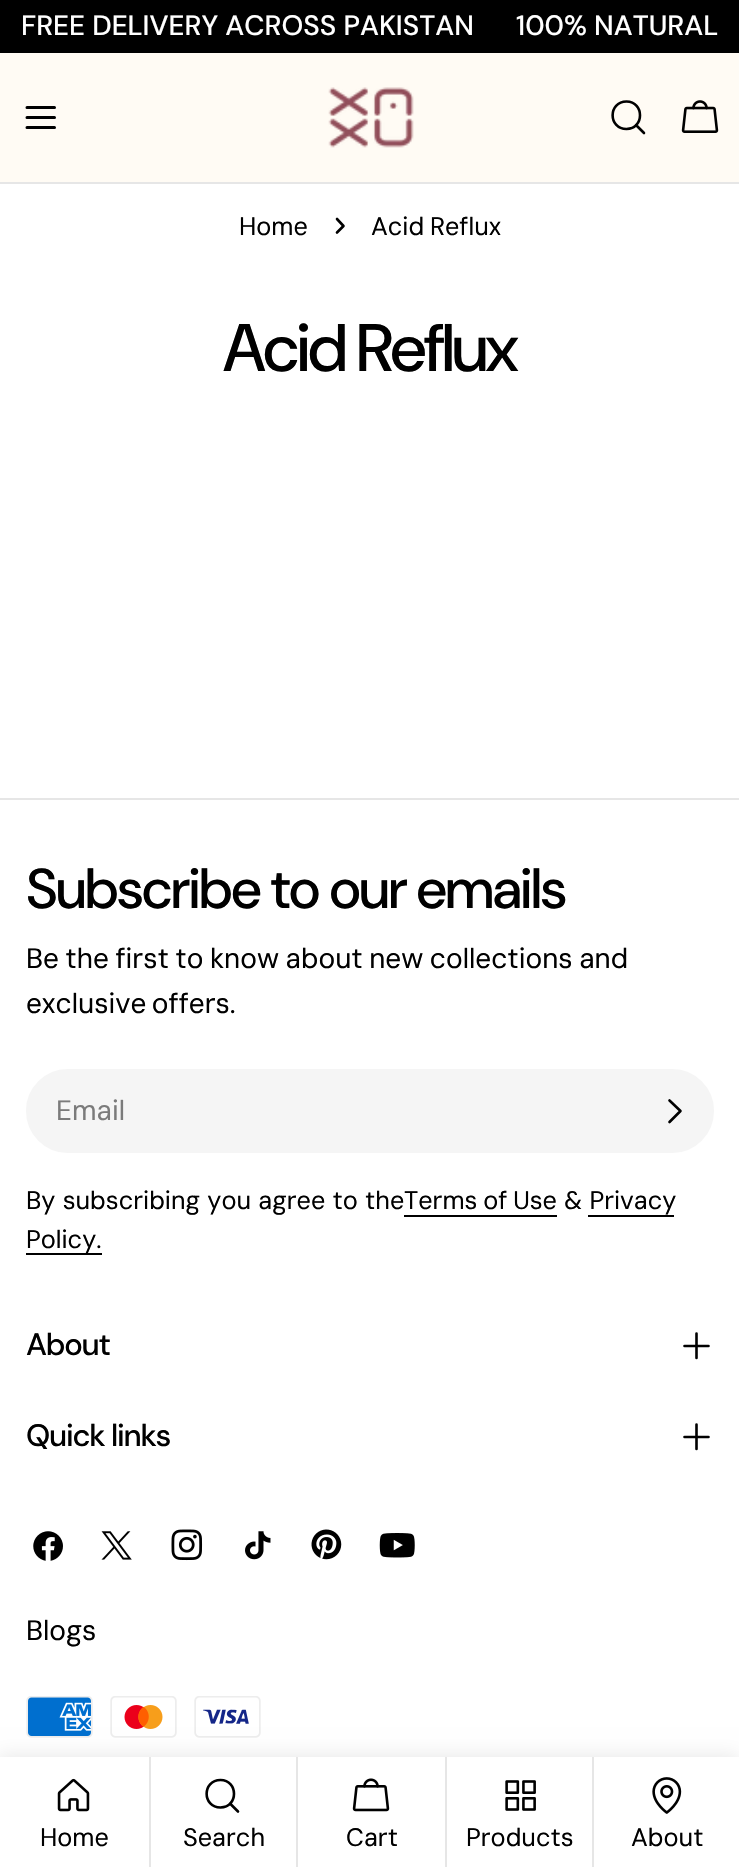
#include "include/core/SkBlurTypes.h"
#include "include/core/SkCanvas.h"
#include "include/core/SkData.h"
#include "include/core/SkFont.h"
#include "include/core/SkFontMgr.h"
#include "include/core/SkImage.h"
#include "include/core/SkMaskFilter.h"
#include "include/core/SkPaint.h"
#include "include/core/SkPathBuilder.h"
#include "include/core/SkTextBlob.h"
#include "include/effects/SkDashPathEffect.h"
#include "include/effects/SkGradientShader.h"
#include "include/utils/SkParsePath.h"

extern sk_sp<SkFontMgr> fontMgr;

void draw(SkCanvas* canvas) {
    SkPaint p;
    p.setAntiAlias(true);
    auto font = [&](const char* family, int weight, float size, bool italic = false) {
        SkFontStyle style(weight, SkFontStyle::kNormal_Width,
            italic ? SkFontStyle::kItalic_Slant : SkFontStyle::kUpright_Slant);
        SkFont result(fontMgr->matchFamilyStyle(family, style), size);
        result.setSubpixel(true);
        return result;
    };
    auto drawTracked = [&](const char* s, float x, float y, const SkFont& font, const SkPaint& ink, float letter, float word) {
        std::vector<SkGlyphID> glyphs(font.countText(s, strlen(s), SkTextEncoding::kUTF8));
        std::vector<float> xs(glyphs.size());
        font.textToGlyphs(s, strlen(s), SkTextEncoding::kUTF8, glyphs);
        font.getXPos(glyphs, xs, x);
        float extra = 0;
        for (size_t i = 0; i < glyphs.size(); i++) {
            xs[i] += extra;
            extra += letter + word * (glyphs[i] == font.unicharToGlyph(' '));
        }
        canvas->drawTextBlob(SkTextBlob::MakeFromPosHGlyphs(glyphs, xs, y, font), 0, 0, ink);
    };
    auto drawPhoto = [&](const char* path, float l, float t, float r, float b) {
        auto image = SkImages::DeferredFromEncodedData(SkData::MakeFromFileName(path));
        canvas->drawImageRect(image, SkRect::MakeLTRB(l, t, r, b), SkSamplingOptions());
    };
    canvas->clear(0xFFFFFFFF);
    p.setColor(0xFF000000);
    canvas->drawRect(SkRect::MakeLTRB(0, 0, 739, 53), p);
    auto font1 = font("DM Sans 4", 500, 28);
    p.setColor(0xFFFFFFFF);
    canvas->drawString("FREE DELIVERY ACROSS PAKISTAN", 21, 35, font1, p);
    canvas->drawString("100% NATURAL", 516, 35, font1, p);
    p.setColor(0xFFE6E6E6);
    canvas->drawRect(SkRect::MakeLTRB(0, 182, 739, 184), p);
    p.setColor(0xFFFFFBF4);
    canvas->drawRect(SkRect::MakeLTRB(0, 53, 739, 182), p);
    p.setStyle(SkPaint::kStroke_Style);
    p.setStrokeWidth(3);
    p.setStrokeCap(SkPaint::kRound_Cap);
    p.setStrokeJoin(SkPaint::kRound_Join);
    p.setColor(0xFF000000);
    canvas->drawPath(SkPathBuilder().moveTo(27, 117.5f).lineTo(54.5f, 117.5f).moveTo(27, 107.5f).lineTo(54.5f, 107.5f).moveTo(27, 127.5f).lineTo(54.5f, 127.5f).detach(), p);
    drawPhoto("media/1.png", 328, 87, 414, 148);
    p.setStrokeWidth(2.6f);
    canvas->drawPath(SkPathBuilder().moveTo(626.5f, 129).cubicTo(644.5f, 129, 644.5f, 101.5f, 626.5f, 101.5f).cubicTo(608, 101.5f, 608, 129, 626.5f, 129).close().moveTo(636, 125).lineTo(644, 133).detach(), p);
    drawPhoto("media/2.png", 681, 100, 719, 133);
    auto font2 = font("DM Sans", 400, 25.25f);
    p.setStyle(SkPaint::kFill_Style);
    canvas->drawString("Home", 239, 235, font2, p);
    p.setStyle(SkPaint::kStroke_Style);
    canvas->drawPath(SkPathBuilder().moveTo(337, 219).lineTo(343.5f, 226).lineTo(337, 232.5f).detach(), p);
    p.setStyle(SkPaint::kFill_Style);
    drawTracked("Acid Reflux", 371, 235, font2, p, 0, -1);
    auto font3 = font("DM Sans", 500, 67);
    drawTracked("Acid Reflux", 223, 371, font3, p, -2.75f, 0);
    p.setColor(0xFFE6E6E6);
    canvas->drawRect(SkRect::MakeLTRB(0, 798, 739, 800), p);
    auto font4 = font("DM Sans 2", 500, 56);
    p.setColor(0xFF000000);
    drawTracked("Subscribe to our emails", 26, 908, font4, p, -2.25f, 0);
    auto font5 = font("DM Sans", 400, 28);
    drawTracked("Be the first to know about new collections and", 26, 968, font5, p, 0, -1);
    drawTracked("exclusive offers.", 26, 1013, font5, p, 0, -2);
    p.setColor(0xFFF5F5F5);
    canvas->drawRoundRect(SkRect::MakeLTRB(27, 1070, 713, 1152), 41, 41, p);
    p.setStyle(SkPaint::kStroke_Style);
    p.setStrokeWidth(2);
    p.setStrokeCap(SkPaint::kButt_Cap);
    p.setStrokeJoin(SkPaint::kMiter_Join);
    canvas->drawRoundRect(SkRect::MakeLTRB(27, 1070, 713, 1152), 41, 41, p);
    p.setStyle(SkPaint::kFill_Style);
    p.setColor(0xFF7B7B7B);
    canvas->drawString("Email", 56, 1120, font5, p);
    p.setStyle(SkPaint::kStroke_Style);
    p.setStrokeWidth(2.6f);
    p.setStrokeCap(SkPaint::kRound_Cap);
    p.setStrokeJoin(SkPaint::kRound_Join);
    p.setColor(0xFF000000);
    canvas->drawPath(SkPathBuilder().moveTo(669.5f, 1100.5f).lineTo(680.5f, 1111).lineTo(669.5f, 1122).detach(), p);
    p.setStyle(SkPaint::kFill_Style);
    drawTracked("By subscribing you agree to the", 26, 1209, font2, p, 0, 0.5f);
    drawTracked("Terms of Use", 404, 1209, font2, p, 0, -1);
    canvas->drawRect(SkRect::MakeLTRB(404, 1215, 557, 1217), p);
    canvas->drawString("& Privacy", 564, 1209, font2, p);
    canvas->drawRect(SkRect::MakeLTRB(26, 1253, 102, 1255), p);
    canvas->drawString("Policy.", 26, 1248, font2, p);
    canvas->drawRect(SkRect::MakeLTRB(588, 1215, 674, 1217), p);
    auto font6 = font("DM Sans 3", 500, 31);
    drawTracked("About", 26, 1355, font6, p, -1.25f, 0);
    p.setStyle(SkPaint::kStroke_Style);
    canvas->drawPath(SkPathBuilder().moveTo(684.5f, 1346).lineTo(708.5f, 1346).moveTo(696.5f, 1333.5f).lineTo(696.5f, 1358).detach(), p);
    p.setStyle(SkPaint::kFill_Style);
    drawTracked("Quick links", 26, 1446, font6, p, -1.25f, 0);
    p.setStyle(SkPaint::kStroke_Style);
    canvas->drawPath(SkPathBuilder().moveTo(684.5f, 1437).lineTo(708.5f, 1437).moveTo(696.5f, 1424.5f).lineTo(696.5f, 1449).detach(), p);
    drawPhoto("media/3.png", 33, 1531, 63, 1561);
    drawPhoto("media/4.png", 101, 1531, 132, 1560);
    drawPhoto("media/5.png", 171, 1529, 203, 1561);
    drawPhoto("media/6.png", 245, 1531, 271, 1560);
    drawPhoto("media/7.png", 311, 1529, 342, 1560);
    drawPhoto("media/8.png", 379, 1533, 415, 1558);
    p.setStyle(SkPaint::kFill_Style);
    canvas->drawString("Blogs", 26, 1640, font5, p);
    drawPhoto("media/9.png", 26, 1696, 93, 1738);
    drawPhoto("media/10.png", 110, 1696, 177, 1738);
    drawPhoto("media/11.png", 194, 1696, 261, 1738);
    p.setColor(0x14000000);
    p.setMaskFilter(SkMaskFilter::MakeBlur(kNormal_SkBlurStyle, 9));
    canvas->drawRect(SkRect::MakeLTRB(-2, 1754, 739, 1864), p);
    p.setMaskFilter(nullptr);
    p.setColor(0xFFFFFFFF);
    canvas->drawRect(SkRect::MakeLTRB(0, 1757, 739, 1867), p);
    drawPhoto("media/12.png", 57, 1778, 90, 1812);
    p.setColor(0xFF000000);
    canvas->drawString("Home", 40, 1846, font2, p);
    p.setColor(0xFFE6E6E6);
    canvas->drawRect(SkRect::MakeLTRB(149, 1757, 151, 1867), p);
    p.setStyle(SkPaint::kStroke_Style);
    p.setColor(0xFF000000);
    canvas->drawPath(SkPathBuilder().moveTo(220.5f, 1807.5f).cubicTo(238.5f, 1807.5f, 238.5f, 1780, 220.5f, 1780).cubicTo(202, 1780, 202, 1807.5f, 220.5f, 1807.5f).close().moveTo(230, 1803.5f).lineTo(238, 1811.5f).detach(), p);
    p.setStyle(SkPaint::kFill_Style);
    canvas->drawString("Search", 183, 1846, font2, p);
    p.setColor(0xFFE6E6E6);
    canvas->drawRect(SkRect::MakeLTRB(296, 1757, 298, 1867), p);
    drawPhoto("media/13.png", 352, 1778, 390, 1812);
    p.setColor(0xFF000000);
    canvas->drawString("Cart", 346, 1846, font2, p);
    p.setColor(0xFFE6E6E6);
    canvas->drawRect(SkRect::MakeLTRB(445, 1757, 447, 1867), p);
    drawPhoto("media/14.png", 505, 1780, 536, 1811);
    p.setColor(0xFF000000);
    canvas->drawString("Products", 466, 1846, font2, p);
    p.setColor(0xFFE6E6E6);
    canvas->drawRect(SkRect::MakeLTRB(592, 1757, 594, 1867), p);
    drawPhoto("media/15.png", 652, 1777, 682, 1814);
    p.setColor(0xFF000000);
    canvas->drawString("About", 631, 1846, font2, p);
}
